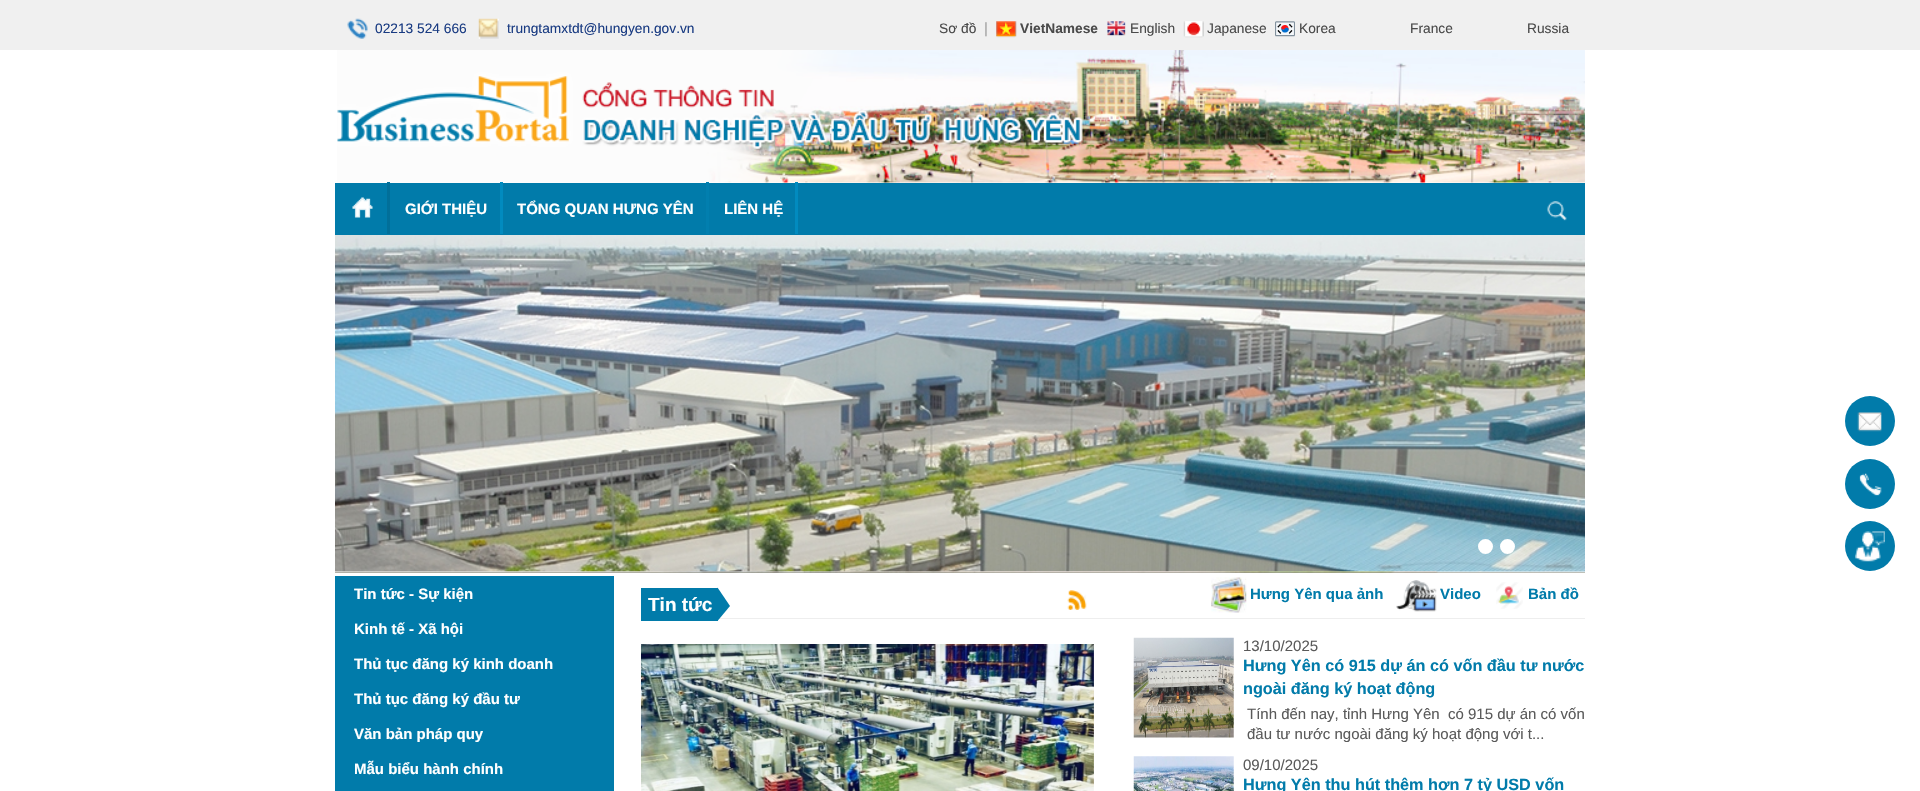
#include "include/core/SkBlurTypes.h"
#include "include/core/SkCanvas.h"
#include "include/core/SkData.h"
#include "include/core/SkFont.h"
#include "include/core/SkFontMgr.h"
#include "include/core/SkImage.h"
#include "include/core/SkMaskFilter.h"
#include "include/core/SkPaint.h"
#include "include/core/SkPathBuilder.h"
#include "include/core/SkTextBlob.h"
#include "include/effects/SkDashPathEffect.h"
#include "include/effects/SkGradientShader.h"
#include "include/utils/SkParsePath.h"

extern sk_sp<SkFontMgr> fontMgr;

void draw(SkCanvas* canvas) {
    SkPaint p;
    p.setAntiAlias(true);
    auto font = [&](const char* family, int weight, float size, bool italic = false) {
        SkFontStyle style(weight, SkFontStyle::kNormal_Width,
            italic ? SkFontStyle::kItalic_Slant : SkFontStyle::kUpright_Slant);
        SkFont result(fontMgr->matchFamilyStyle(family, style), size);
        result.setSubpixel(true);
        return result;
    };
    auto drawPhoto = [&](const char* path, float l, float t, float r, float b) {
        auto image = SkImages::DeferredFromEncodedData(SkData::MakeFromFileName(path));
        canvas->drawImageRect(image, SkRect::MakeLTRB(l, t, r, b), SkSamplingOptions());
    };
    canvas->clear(0xFFFFFFFF);
    p.setColor(0xFFF0F0F0);
    canvas->drawRect(SkRect::MakeLTRB(0, 0, 1920, 50), p);
    drawPhoto("media/1.png", 347, 18, 368, 39);
    auto font1 = font("Liberation Sans", 400, 13.75f);
    p.setColor(0xFF193B82);
    canvas->drawString("02213 524 666", 375, 33, font1, p);
    drawPhoto("media/2.png", 478, 18, 499, 39);
    canvas->drawString("trungtamxtdt@hungyen.gov.vn", 507, 33, font1, p);
    p.setColor(0xFF4A4A4A);
    canvas->drawString("Sơ đồ", 939, 33, font1, p);
    auto font2 = font("Liberation Sans", 400, 15);
    p.setColor(0xFFA1A1A1);
    canvas->drawString("|", 984, 33, font2, p);
    drawPhoto("media/3.png", 996, 21, 1017, 38);
    auto font3 = font("Liberation Sans", 700, 13.75f);
    p.setColor(0xFF4A4A4A);
    canvas->drawString("VietNamese", 1020, 33, font3, p);
    drawPhoto("media/4.png", 1107, 21, 1126, 36);
    canvas->drawString("English", 1130, 33, font1, p);
    drawPhoto("media/5.png", 1183, 21, 1204, 38);
    canvas->drawString("Japanese", 1207, 33, font1, p);
    drawPhoto("media/6.png", 1275, 21, 1295, 37);
    {
        const struct { const char* s; float x, y; } items[] = {
            {"Korea", 1299, 33},
            {"France", 1410, 33},
            {"Russia", 1527, 33},
        };
        for (auto [s, x, y] : items) {
            canvas->drawString(s, x, y, font1, p);
        }
    }
    drawPhoto("media/7.png", 337, 50, 1585, 183);
    p.setColor(0xFF017BAA);
    canvas->drawRect(SkRect::MakeLTRB(335, 183, 1585, 235), p);
    drawPhoto("media/8.png", 352, 197, 373, 218);
    p.setColor(0xFF026F99);
    canvas->drawRect(SkRect::MakeLTRB(387, 182, 390, 234), p);
    auto font4 = font("Liberation Sans", 700, 15);
    p.setColor(0xFFFFFFFF);
    canvas->drawString("GIỚI THIỆU", 405, 214, font4, p);
    p.setColor(0xFF028BBF);
    canvas->drawRect(SkRect::MakeLTRB(500, 182, 503, 234), p);
    p.setColor(0xFFFFFFFF);
    canvas->drawString("TỔNG QUAN HƯNG YÊN", 517, 214, font4, p);
    p.setColor(0xFF027FAF);
    canvas->drawRect(SkRect::MakeLTRB(706, 182, 709, 234), p);
    p.setColor(0xFFFFFFFF);
    canvas->drawString("LIÊN HỆ", 724, 214, font4, p);
    p.setColor(0xFF028BBF);
    canvas->drawRect(SkRect::MakeLTRB(795, 182, 798, 234), p);
    drawPhoto("media/9.png", 1547, 201, 1567, 221);
    p.setColor(0xFF017BAA);
    canvas->drawCircle(1870, 421, 25, p);
    drawPhoto("media/10.png", 1857, 412, 1882, 432);
    canvas->drawCircle(1870, 484, 25, p);
    drawPhoto("media/11.png", 1859, 473, 1882, 496);
    canvas->drawCircle(1870, 546, 25, p);
    drawPhoto("media/12.png", 1855, 531, 1885, 562);
    p.setColor(0xFF7D7F72);
    canvas->drawRect(SkRect::MakeLTRB(335, 572, 1585, 573), p);
    drawPhoto("media/13.png", 335, 571, 1585, 573);
    drawPhoto("media/14.png", 335, 235, 1585, 572);
    p.setColor(0xFFFFFFFF);
    canvas->drawCircle(1485.5f, 546.5f, 5.5f, p);
    p.setStyle(SkPaint::kStroke_Style);
    p.setStrokeWidth(4);
    canvas->drawCircle(1485.5f, 546.5f, 5.5f, p);
    p.setStyle(SkPaint::kFill_Style);
    canvas->drawCircle(1507.5f, 546.5f, 5.5f, p);
    p.setStyle(SkPaint::kStroke_Style);
    canvas->drawCircle(1507.5f, 546.5f, 5.5f, p);
    p.setStyle(SkPaint::kFill_Style);
    p.setColor(0xFF017BAA);
    canvas->drawRect(SkRect::MakeLTRB(335, 576, 614, 791), p);
    p.setColor(0xFFFFFFFF);
    {
        const struct { const char* s; float x, y; } items[] = {
            {"Tin tức - Sự kiện", 354, 599},
            {"Kinh tế - Xã hội", 354, 634},
            {"Thủ tục đăng ký kinh doanh", 354, 669},
            {"Thủ tục đăng ký đầu tư", 354, 704},
            {"Văn bản pháp quy", 354, 739},
            {"Mẫu biểu hành chính", 354, 774},
        };
        for (auto [s, x, y] : items) {
            canvas->drawString(s, x, y, font4, p);
        }
    }
    p.setColor(0xFFEEEEEE);
    canvas->drawRect(SkRect::MakeLTRB(719, 618, 1585, 619), p);
    drawPhoto("media/15.png", 1211, 577, 1247, 613);
    p.setColor(0xFF017BAA);
    canvas->drawString("Hưng Yên qua ảnh", 1250, 599, font4, p);
    drawPhoto("media/16.png", 1396, 580, 1437, 612);
    canvas->drawString("Video", 1440, 599, font4, p);
    drawPhoto("media/17.png", 1496, 582, 1523, 609);
    canvas->drawString("Bản đồ", 1528, 599, font4, p);
    canvas->drawRect(SkRect::MakeLTRB(641, 588, 718, 621), p);
    auto font5 = font("Liberation Sans", 700, 19);
    p.setColor(0xFFFFFFFF);
    canvas->drawString("Tin tức", 648, 611, font5, p);
    p.setColor(0xFF017BAA);
    canvas->drawPath(SkPathBuilder().moveTo(717.5f, 621).lineTo(717.5f, 587.5f).lineTo(730, 606).close().detach(), p);
    drawPhoto("media/18.png", 1067, 590, 1087, 610);
    drawPhoto("media/19.png", 641, 644, 1094, 791);
    drawPhoto("media/20.png", 1133, 637, 1234, 738);
    p.setColor(0xFF5A5A5A);
    canvas->drawString("13/10/2025", 1243, 651, font2, p);
    auto font6 = font("Liberation Sans", 700, 16.25f);
    p.setColor(0xFF017BAA);
    canvas->drawString("Hưng Yên có 915 dự án có vốn đầu tư nước", 1243, 671, font6, p);
    canvas->drawString("ngoài đăng ký hoạt động", 1243, 694, font6, p);
    p.setColor(0xFF5A5A5A);
    canvas->drawString("Tính đến nay, tỉnh Hưng Yên  có 915 dự án có vốn", 1247, 719, font2, p);
    canvas->drawString("đầu tư nước ngoài đăng ký hoạt động với t...", 1247, 739, font2, p);
    drawPhoto("media/21.png", 1133, 756, 1234, 791);
    canvas->drawString("09/10/2025", 1243, 770, font2, p);
    p.setColor(0xFF017BAA);
    canvas->drawString("Hưng Yên thu hút thêm hơn 7 tỷ USD vốn", 1243, 790, font6, p);
}
